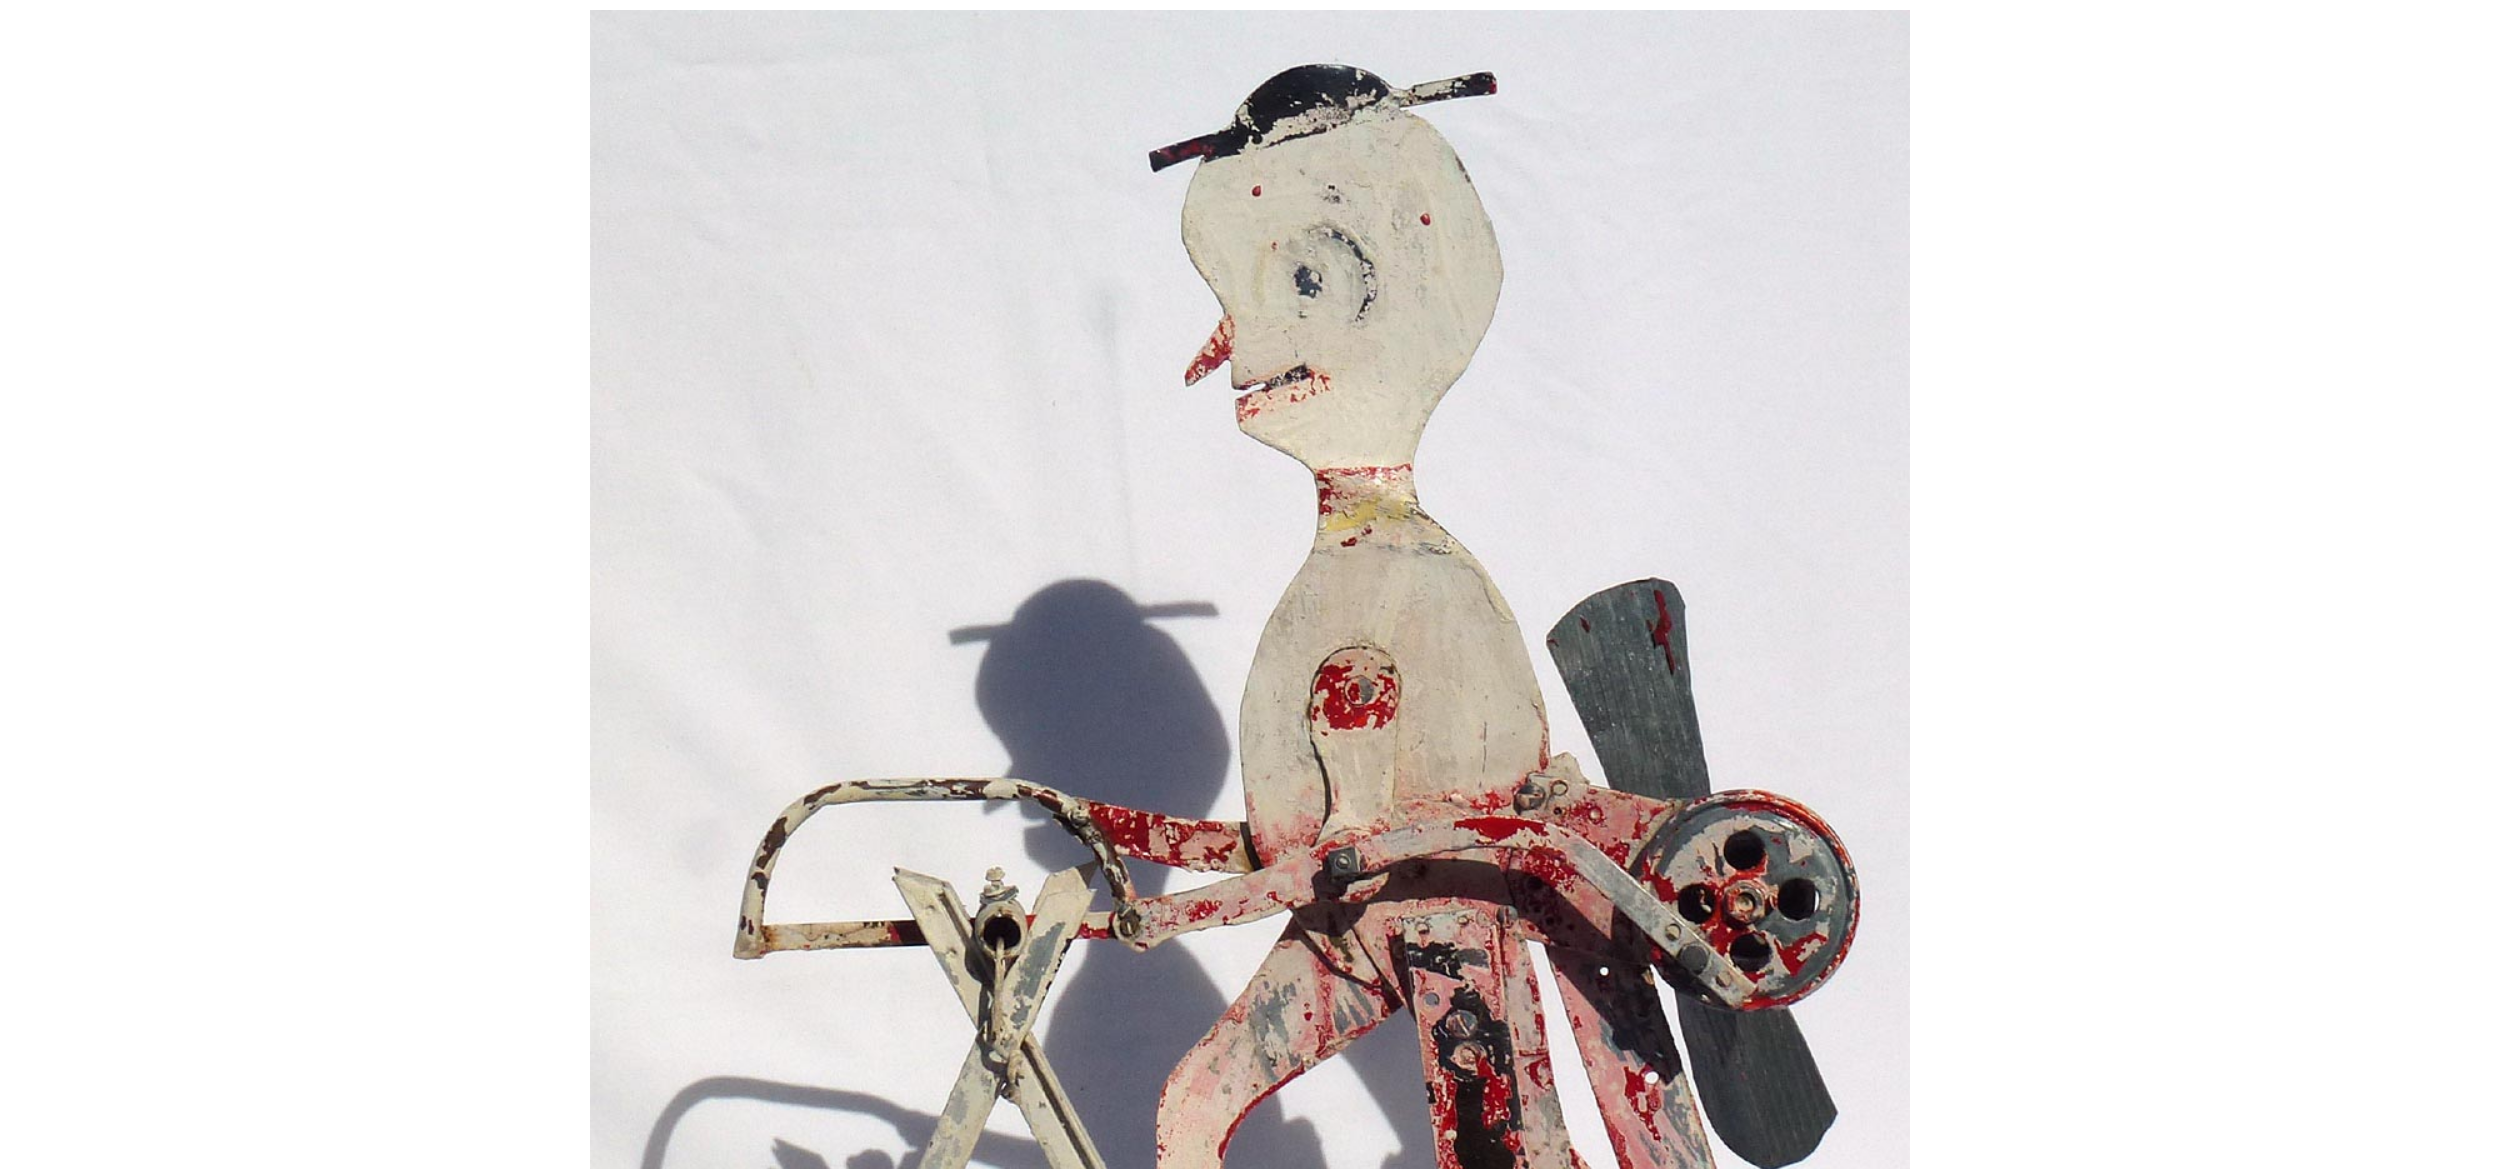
#include "include/core/SkBlurTypes.h"
#include "include/core/SkCanvas.h"
#include "include/core/SkData.h"
#include "include/core/SkFont.h"
#include "include/core/SkFontMgr.h"
#include "include/core/SkImage.h"
#include "include/core/SkMaskFilter.h"
#include "include/core/SkPaint.h"
#include "include/core/SkPathBuilder.h"
#include "include/core/SkTextBlob.h"
#include "include/effects/SkDashPathEffect.h"
#include "include/effects/SkGradientShader.h"
#include "include/utils/SkParsePath.h"

extern sk_sp<SkFontMgr> fontMgr;

void draw(SkCanvas* canvas) {
    SkPaint p;
    p.setAntiAlias(true);
    auto drawPhoto = [&](const char* path, float l, float t, float r, float b) {
        auto image = SkImages::DeferredFromEncodedData(SkData::MakeFromFileName(path));
        canvas->drawImageRect(image, SkRect::MakeLTRB(l, t, r, b), SkSamplingOptions());
    };
    canvas->clear(0xFFFFFFFF);
    drawPhoto("media/1.png", 590, 10, 1910, 1169);
}
